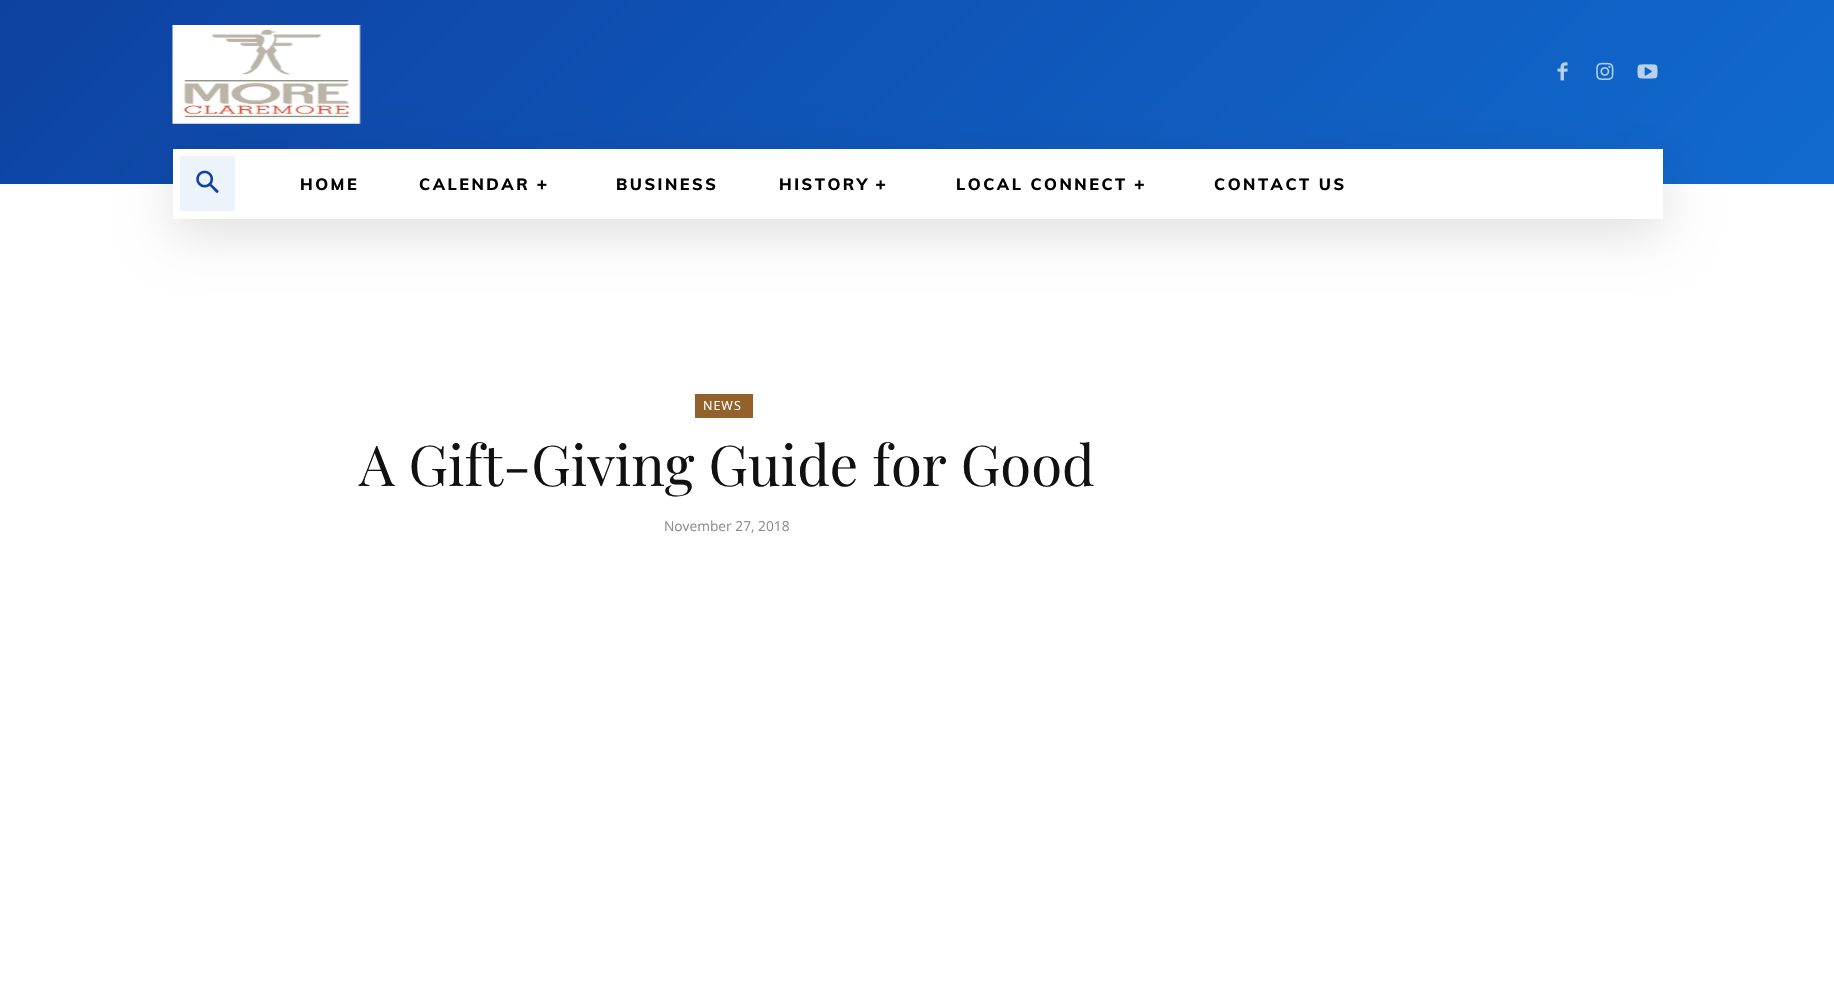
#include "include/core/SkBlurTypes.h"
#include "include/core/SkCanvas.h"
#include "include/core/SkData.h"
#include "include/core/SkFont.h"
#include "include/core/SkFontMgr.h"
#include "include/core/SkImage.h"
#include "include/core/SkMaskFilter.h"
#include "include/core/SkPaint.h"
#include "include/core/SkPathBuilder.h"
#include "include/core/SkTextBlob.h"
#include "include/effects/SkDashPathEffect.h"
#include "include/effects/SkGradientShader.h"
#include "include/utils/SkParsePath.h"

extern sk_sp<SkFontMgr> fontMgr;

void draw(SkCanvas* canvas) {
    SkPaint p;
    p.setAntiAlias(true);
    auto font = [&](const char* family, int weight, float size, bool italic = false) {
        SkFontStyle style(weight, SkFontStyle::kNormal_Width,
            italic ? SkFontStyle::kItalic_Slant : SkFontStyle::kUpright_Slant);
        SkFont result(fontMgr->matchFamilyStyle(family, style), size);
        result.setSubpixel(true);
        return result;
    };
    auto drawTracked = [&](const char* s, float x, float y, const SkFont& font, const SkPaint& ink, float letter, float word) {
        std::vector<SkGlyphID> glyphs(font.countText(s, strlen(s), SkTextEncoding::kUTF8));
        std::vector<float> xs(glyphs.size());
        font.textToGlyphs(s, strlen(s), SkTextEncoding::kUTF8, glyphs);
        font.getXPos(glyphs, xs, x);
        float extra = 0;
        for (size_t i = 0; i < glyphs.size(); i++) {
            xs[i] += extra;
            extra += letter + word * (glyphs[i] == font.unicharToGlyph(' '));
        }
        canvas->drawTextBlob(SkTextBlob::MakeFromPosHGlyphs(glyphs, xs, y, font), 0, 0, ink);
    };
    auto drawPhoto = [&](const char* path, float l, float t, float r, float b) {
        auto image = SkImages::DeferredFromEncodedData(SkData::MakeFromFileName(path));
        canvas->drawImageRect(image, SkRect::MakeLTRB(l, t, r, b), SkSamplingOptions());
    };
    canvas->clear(0xFFFFFFFF);
    {
        const SkColor colors[] = {0xFF116ACE, 0xFF0D42A2};
        const float stops[] = {0, 1};
        const SkPoint ends[] = {{1422, 597}, {413, -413}};
        p.setShader(SkGradientShader::MakeLinear(ends, colors, stops, 2, SkTileMode::kClamp));
        p.setAlpha(255);
    }
    canvas->drawRect(SkRect::MakeLTRB(0, 0, 1834, 184), p);
    drawPhoto("media/1.png", 172, 25, 361, 124);
    drawPhoto("media/2.png", 1557, 62, 1568, 81);
    drawPhoto("media/3.png", 1596, 62, 1614, 80);
    drawPhoto("media/4.png", 1637, 64, 1658, 79);
    p.setShader(nullptr);
    p.setColor(0x1F000000);
    p.setMaskFilter(SkMaskFilter::MakeBlur(kNormal_SkBlurStyle, 25));
    canvas->drawRect(SkRect::MakeLTRB(173, 164, 1663, 234), p);
    p.setMaskFilter(nullptr);
    p.setColor(0xFFFFFFFF);
    canvas->drawRect(SkRect::MakeLTRB(173, 149, 1663, 219), p);
    p.setColor(0xFFECF3FB);
    canvas->drawRect(SkRect::MakeLTRB(180, 156, 235, 211), p);
    drawPhoto("media/5.png", 196, 170, 219, 193);
    auto font1 = font("Muli", 800, 16.25f);
    p.setColor(0xFF000000);
    drawTracked("HOME", 300, 190, font1, p, 2.5f, 0);
    drawTracked("CALENDAR", 419, 190, font1, p, 2.5f, 0);
    drawPhoto("media/6.png", 537, 180, 547, 190);
    drawTracked("BUSINESS", 616, 190, font1, p, 2.5f, 0);
    drawTracked("HISTORY", 779, 190, font1, p, 2.5f, 0);
    drawPhoto("media/7.png", 876, 180, 886, 190);
    drawTracked("LOCAL CONNECT", 956, 190, font1, p, 2.5f, 0);
    drawPhoto("media/8.png", 1134, 180, 1144, 190);
    drawTracked("CONTACT US", 1214, 190, font1, p, 2.5f, 0);
    p.setColor(0xFF93612C);
    canvas->drawRect(SkRect::MakeLTRB(695, 394, 753, 418), p);
    auto font2 = font("Open Sans", 400, 12.5f);
    p.setColor(0xFFFFFFFF);
    drawTracked("NEWS", 703, 410, font2, p, 1, 0);
    auto font3 = font("Playfair Display", 400, 56.25f);
    p.setColor(0xFF111111);
    canvas->drawString("A Gift-Giving Guide for Good", 359, 486, font3, p);
    auto font4 = font("Open Sans", 400, 13.75f);
    p.setColor(0xFF8E8E8E);
    canvas->drawString("November 27, 2018", 664, 531, font4, p);
}
